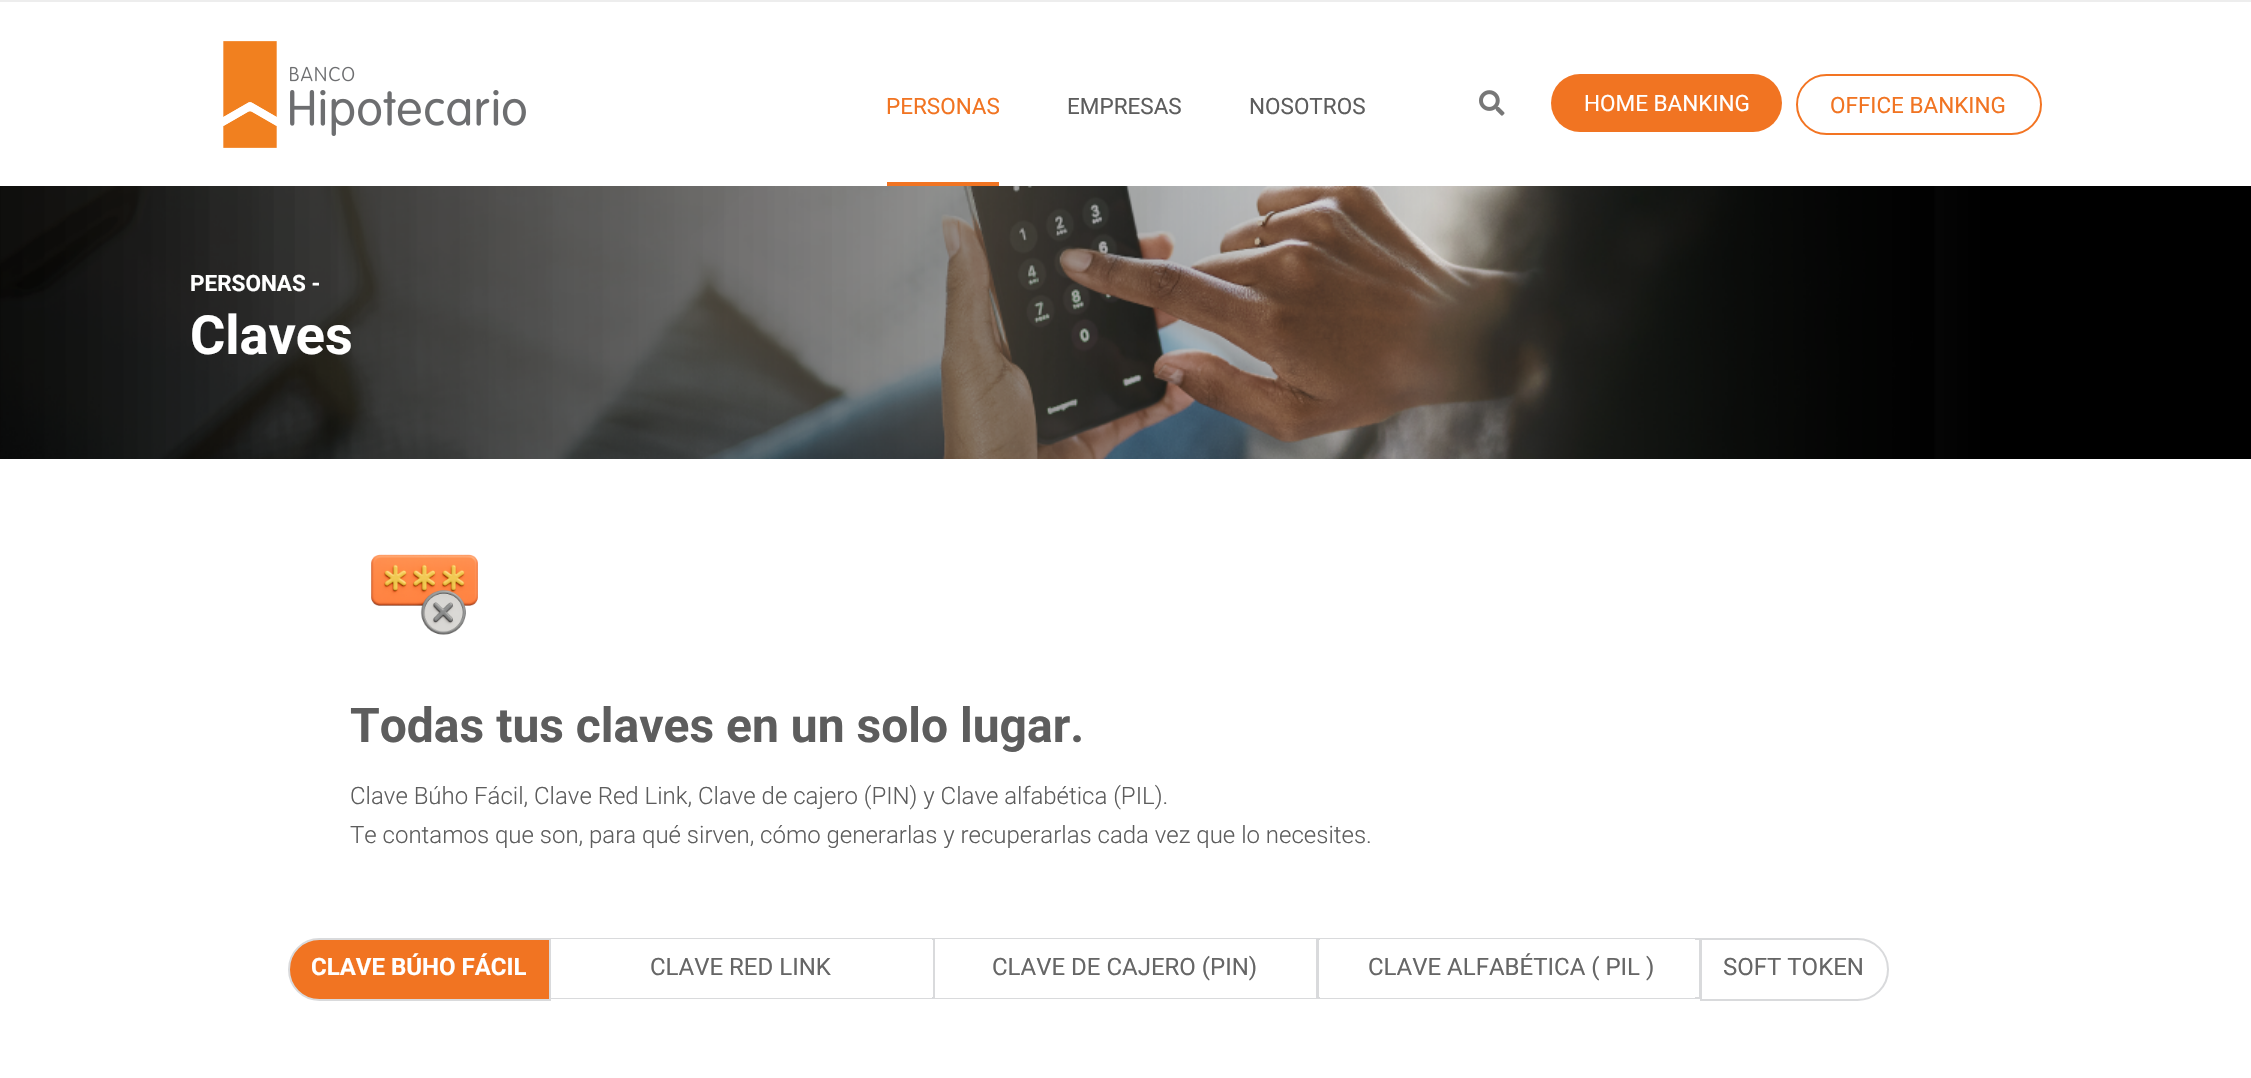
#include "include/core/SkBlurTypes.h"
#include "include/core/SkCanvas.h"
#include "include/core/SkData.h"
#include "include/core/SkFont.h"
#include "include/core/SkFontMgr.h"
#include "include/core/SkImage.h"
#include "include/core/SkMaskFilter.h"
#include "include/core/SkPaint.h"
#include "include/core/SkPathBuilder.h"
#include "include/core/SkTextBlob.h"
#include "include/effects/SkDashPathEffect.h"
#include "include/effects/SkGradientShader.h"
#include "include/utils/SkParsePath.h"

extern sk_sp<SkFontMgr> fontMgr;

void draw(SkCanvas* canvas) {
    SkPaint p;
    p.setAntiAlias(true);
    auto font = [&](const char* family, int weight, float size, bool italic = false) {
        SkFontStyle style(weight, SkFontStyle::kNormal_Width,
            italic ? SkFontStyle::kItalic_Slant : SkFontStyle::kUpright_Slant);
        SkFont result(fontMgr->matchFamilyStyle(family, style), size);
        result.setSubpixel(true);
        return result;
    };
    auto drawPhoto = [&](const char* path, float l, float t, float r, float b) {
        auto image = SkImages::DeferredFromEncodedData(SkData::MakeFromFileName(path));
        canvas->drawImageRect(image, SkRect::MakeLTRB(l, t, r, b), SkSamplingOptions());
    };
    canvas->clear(0xFFFFFFFF);
    p.setColor(0xFFEDEDED);
    canvas->drawRect(SkRect::MakeLTRB(0, 0, 2251, 2), p);
    drawPhoto("media/1.png", 223, 41, 526, 148);
    p.setColor(0xFFF17422);
    canvas->drawRect(SkRect::MakeLTRB(887, 182, 999, 186), p);
    auto font1 = font("Roboto", 400, 22.5f);
    canvas->drawString("PERSONAS", 886, 114, font1, p);
    p.setColor(0xFF5D5D5D);
    canvas->drawString("EMPRESAS", 1067, 114, font1, p);
    canvas->drawString("NOSOTROS", 1249, 114, font1, p);
    drawPhoto("media/2.png", 1479, 90, 1505, 116);
    p.setColor(0xFFF17422);
    canvas->drawRoundRect(SkRect::MakeLTRB(1551, 74, 1782, 132), 29, 29, p);
    p.setColor(0xFFFFFFFF);
    canvas->drawString("HOME BANKING", 1584, 111, font1, p);
    p.setStyle(SkPaint::kStroke_Style);
    p.setStrokeWidth(2);
    p.setColor(0xFFF37422);
    canvas->drawRoundRect(SkRect::MakeLTRB(1797, 75, 2041, 134), 29.5f, 29.5f, p);
    p.setStyle(SkPaint::kFill_Style);
    p.setColor(0xFFF17422);
    canvas->drawString("OFFICE BANKING", 1830, 113, font1, p);
    drawPhoto("media/3.png", 0, 186, 2251, 459);
    auto font2 = font("Roboto", 700, 22.5f);
    p.setColor(0xFFFFFFFF);
    canvas->drawString("PERSONAS -", 190, 291, font2, p);
    auto font3 = font("Roboto", 700, 54);
    canvas->drawString("Claves", 190, 354, font3, p);
    drawPhoto("media/4.png", 371, 554, 478, 635);
    auto font4 = font("Roboto", 700, 48);
    p.setColor(0xFF5D5D5D);
    canvas->drawString("Todas tus claves en un solo lugar.", 350, 742, font4, p);
    auto font5 = font("Roboto", 300, 24);
    canvas->drawString("Clave Búho Fácil, Clave Red Link, Clave de cajero (PIN) y Clave alfabética (PIL).", 350, 804, font5, p);
    canvas->drawString("Te contamos que son, para qué sirven, cómo generarlas y recuperarlas cada vez que lo necesites.", 350, 843, font5, p);
    p.setColor(0xFFF17422);
    canvas->drawPath(SkPathBuilder().moveTo(319.5f, 939).lineTo(550, 939).lineTo(550, 1000).lineTo(319.5f, 1000).cubicTo(302.5f, 1000, 289, 986.5f, 289, 969.5f).cubicTo(289, 952.5f, 302.5f, 939, 319.5f, 939).close().detach(), p);
    p.setStyle(SkPaint::kStroke_Style);
    p.setColor(0xFFD9DADC);
    canvas->drawPath(SkPathBuilder().moveTo(319.5f, 939).lineTo(550, 939).lineTo(550, 1000).lineTo(319.5f, 1000).cubicTo(302.5f, 1000, 289, 986.5f, 289, 969.5f).cubicTo(289, 952.5f, 302.5f, 939, 319.5f, 939).close().detach(), p);
    auto font6 = font("Roboto", 700, 24);
    p.setStyle(SkPaint::kFill_Style);
    p.setColor(0xFFFFFFFF);
    canvas->drawString("CLAVE BÚHO FÁCIL", 311, 975, font6, p);
    p.setStyle(SkPaint::kStroke_Style);
    p.setColor(0xFFD9DADC);
    canvas->drawRect(SkRect::MakeLTRB(552, 939, 934, 998), p);
    p.setStyle(SkPaint::kFill_Style);
    p.setColor(0xFFFFFFFF);
    canvas->drawRect(SkRect::MakeLTRB(551, 939, 932, 998), p);
    auto font7 = font("Roboto", 400, 24);
    p.setColor(0xFF666666);
    canvas->drawString("CLAVE RED LINK", 650, 975, font7, p);
    p.setStyle(SkPaint::kStroke_Style);
    p.setColor(0xFFD9DADC);
    canvas->drawRect(SkRect::MakeLTRB(936, 939, 1316, 998), p);
    p.setStyle(SkPaint::kFill_Style);
    p.setColor(0xFFFFFFFF);
    canvas->drawRect(SkRect::MakeLTRB(935, 939, 1316, 998), p);
    p.setColor(0xFF666666);
    canvas->drawString("CLAVE DE CAJERO (PIN)", 992, 975, font7, p);
    p.setStyle(SkPaint::kStroke_Style);
    p.setColor(0xFFD9DADC);
    canvas->drawRect(SkRect::MakeLTRB(1318, 939, 1700, 998), p);
    p.setStyle(SkPaint::kFill_Style);
    p.setColor(0xFFFFFFFF);
    canvas->drawRect(SkRect::MakeLTRB(1320, 939, 1695, 998), p);
    p.setColor(0xFF666666);
    canvas->drawString("CLAVE ALFABÉTICA ( PIL )", 1368, 975, font7, p);
    p.setColor(0xFFFFFFFF);
    canvas->drawPath(SkPathBuilder().moveTo(1701, 939).lineTo(1857.5f, 939).cubicTo(1874.5f, 939, 1888, 952.5f, 1888, 969.5f).cubicTo(1888, 986.5f, 1874.5f, 1000, 1857.5f, 1000).lineTo(1701, 1000).close().detach(), p);
    p.setStyle(SkPaint::kStroke_Style);
    p.setColor(0xFFD9DADC);
    canvas->drawPath(SkPathBuilder().moveTo(1701, 939).lineTo(1857.5f, 939).cubicTo(1874.5f, 939, 1888, 952.5f, 1888, 969.5f).cubicTo(1888, 986.5f, 1874.5f, 1000, 1857.5f, 1000).lineTo(1701, 1000).close().detach(), p);
    p.setStyle(SkPaint::kFill_Style);
    p.setColor(0xFF666666);
    canvas->drawString("SOFT TOKEN", 1723, 975, font7, p);
}
